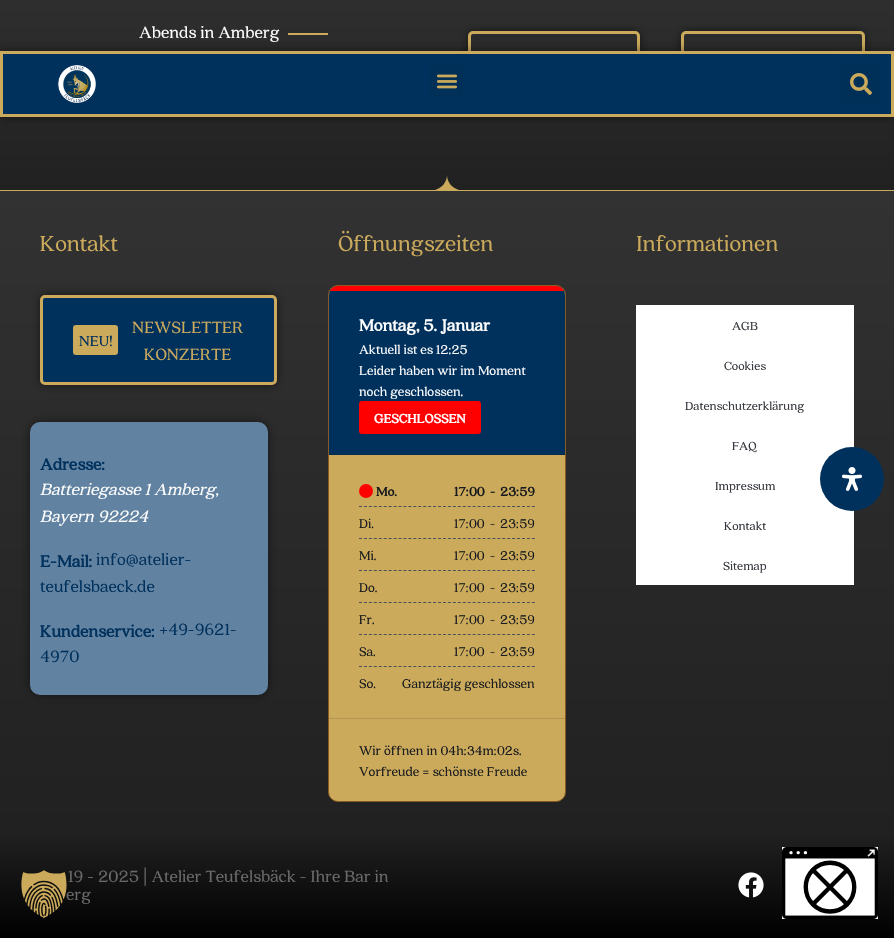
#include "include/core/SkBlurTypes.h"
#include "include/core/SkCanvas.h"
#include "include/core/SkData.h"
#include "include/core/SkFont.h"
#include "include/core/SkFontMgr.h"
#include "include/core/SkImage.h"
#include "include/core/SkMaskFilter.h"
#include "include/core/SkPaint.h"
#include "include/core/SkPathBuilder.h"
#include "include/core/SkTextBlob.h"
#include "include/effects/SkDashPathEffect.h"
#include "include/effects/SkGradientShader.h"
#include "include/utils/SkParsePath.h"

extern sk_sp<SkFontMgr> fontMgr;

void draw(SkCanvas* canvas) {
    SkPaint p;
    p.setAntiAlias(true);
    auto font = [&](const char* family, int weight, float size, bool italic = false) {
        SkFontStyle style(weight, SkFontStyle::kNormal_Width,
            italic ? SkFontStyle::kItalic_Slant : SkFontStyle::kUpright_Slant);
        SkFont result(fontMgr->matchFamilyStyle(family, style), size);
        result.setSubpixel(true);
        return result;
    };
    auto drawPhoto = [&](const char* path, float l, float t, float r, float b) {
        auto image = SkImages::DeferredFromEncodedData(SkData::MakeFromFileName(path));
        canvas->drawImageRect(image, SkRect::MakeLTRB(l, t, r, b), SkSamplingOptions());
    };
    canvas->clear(0xFFFFFFFF);
    {
        const SkColor colors[] = {0xFF323232, 0xFF212121};
        const float stops[] = {0, 1};
        const SkPoint ends[] = {{447, -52}, {447, 191}};
        p.setShader(SkGradientShader::MakeLinear(ends, colors, stops, 2, SkTileMode::kClamp));
        p.setAlpha(255);
    }
    canvas->drawRect(SkRect::MakeLTRB(0, 0, 894, 190), p);
    auto font1 = font("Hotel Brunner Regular", 400, 18);
    p.setShader(nullptr);
    p.setColor(0xFFFFFFFF);
    canvas->drawString("Abends in Amberg", 139, 38, font1, p);
    p.setColor(0xFFCBAA5C);
    canvas->drawRect(SkRect::MakeLTRB(288, 33, 328, 35), p);
    canvas->save();
    canvas->clipPath(SkPathBuilder(SkPathFillType::kEvenOdd).moveTo(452, 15).lineTo(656, 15).lineTo(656, 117).lineTo(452, 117).close().moveTo(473, 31).lineTo(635, 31).cubicTo(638, 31, 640, 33, 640, 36).lineTo(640, 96).cubicTo(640, 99, 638, 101, 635, 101).lineTo(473, 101).cubicTo(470, 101, 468, 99, 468, 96).lineTo(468, 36).cubicTo(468, 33, 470, 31, 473, 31).close().detach(), true);
    p.setColor(0x80000000);
    p.setMaskFilter(SkMaskFilter::MakeBlur(kNormal_SkBlurStyle, 5));
    canvas->drawRoundRect(SkRect::MakeLTRB(468, 31, 640, 101), 5, 5, p);
    p.setMaskFilter(nullptr);
    canvas->restore();
    p.setStyle(SkPaint::kStroke_Style);
    p.setStrokeWidth(3);
    p.setColor(0xFFCBAA5C);
    canvas->drawRoundRect(SkRect::MakeLTRB(469.5f, 32.5f, 638.5f, 99.5f), 3.5f, 3.5f, p);
    canvas->save();
    canvas->clipPath(SkPathBuilder(SkPathFillType::kEvenOdd).moveTo(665, 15).lineTo(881, 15).lineTo(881, 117).lineTo(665, 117).close().moveTo(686, 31).lineTo(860, 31).cubicTo(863, 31, 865, 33, 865, 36).lineTo(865, 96).cubicTo(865, 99, 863, 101, 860, 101).lineTo(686, 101).cubicTo(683, 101, 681, 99, 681, 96).lineTo(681, 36).cubicTo(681, 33, 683, 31, 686, 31).close().detach(), true);
    p.setStyle(SkPaint::kFill_Style);
    p.setColor(0x80000000);
    p.setMaskFilter(SkMaskFilter::MakeBlur(kNormal_SkBlurStyle, 5));
    canvas->drawRoundRect(SkRect::MakeLTRB(681, 31, 865, 101), 5, 5, p);
    p.setMaskFilter(nullptr);
    canvas->restore();
    p.setStyle(SkPaint::kStroke_Style);
    p.setColor(0xFFCBAA5C);
    canvas->drawRoundRect(SkRect::MakeLTRB(682.5f, 32.5f, 863.5f, 99.5f), 3.5f, 3.5f, p);
    p.setStyle(SkPaint::kFill_Style);
    p.setColor(0x80000000);
    p.setMaskFilter(SkMaskFilter::MakeBlur(kNormal_SkBlurStyle, 5));
    canvas->drawRoundRect(SkRect::MakeLTRB(799, 56, 832, 77), 3, 3, p);
    p.setMaskFilter(nullptr);
    p.setColor(0xFFCBAA5C);
    canvas->drawPath(SkPathBuilder().moveTo(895, 193).lineTo(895, 190).lineTo(459, 190).cubicTo(452, 188, 447, 182, 447, 175).cubicTo(447, 182, 442, 188, 435, 190).lineTo(-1, 190).lineTo(-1, 193).close().detach(), p);
    {
        const SkColor colors[] = {0xFF323232, 0xFF212121};
        const float stops[] = {0, 1};
        const SkPoint ends[] = {{447, 191}, {447, 832}};
        p.setShader(SkGradientShader::MakeLinear(ends, colors, stops, 2, SkTileMode::kClamp));
        p.setAlpha(255);
    }
    canvas->drawRect(SkRect::MakeLTRB(0, 191, 894, 832), p);
    auto font2 = font("Hotel Brunner Regular", 400, 24);
    p.setShader(nullptr);
    p.setColor(0xFFCBAA5C);
    canvas->drawString("Kontakt", 40, 251, font2, p);
    p.setColor(0x80000000);
    p.setMaskFilter(SkMaskFilter::MakeBlur(kNormal_SkBlurStyle, 5));
    canvas->drawRoundRect(SkRect::MakeLTRB(40, 295, 277, 385), 5, 5, p);
    p.setMaskFilter(nullptr);
    p.setColor(0xFF00315D);
    canvas->drawRoundRect(SkRect::MakeLTRB(41.5f, 296.5f, 275.5f, 383.5f), 3.5f, 3.5f, p);
    p.setStyle(SkPaint::kStroke_Style);
    p.setColor(0xFFCBAA5C);
    canvas->drawRoundRect(SkRect::MakeLTRB(41.5f, 296.5f, 275.5f, 383.5f), 3.5f, 3.5f, p);
    p.setStyle(SkPaint::kFill_Style);
    canvas->drawRoundRect(SkRect::MakeLTRB(73, 325, 118, 355), 3, 3, p);
    auto font3 = font("Hotel Brunner Regular", 400, 16);
    p.setColor(0xFF00315D);
    canvas->drawString("NEU!", 79, 346, font3, p);
    p.setColor(0xFFCBAA5C);
    canvas->drawString("NEWSLETTER", 132, 333, font1, p);
    canvas->drawString("KONZERTE", 144, 360, font1, p);
    p.setColor(0x80000000);
    p.setMaskFilter(SkMaskFilter::MakeBlur(kNormal_SkBlurStyle, 5));
    canvas->drawRoundRect(SkRect::MakeLTRB(30, 422, 268, 695), 10, 10, p);
    p.setMaskFilter(nullptr);
    p.setColor(0xFF6182A0);
    canvas->drawRoundRect(SkRect::MakeLTRB(30, 422, 268, 695), 10, 10, p);
    auto font4 = font("Hotel Brunner Regular", 700, 18);
    p.setColor(0xFF00315D);
    canvas->drawString("Adresse:", 40, 470, font4, p);
    auto font5 = font("Hotel Brunner Regular", 400, 18, true);
    p.setColor(0xFFFFFFFF);
    canvas->drawString("Batteriegasse 1 Amberg,", 40, 495, font5, p);
    canvas->drawString("Bayern 92224", 40, 522, font5, p);
    p.setColor(0xFF00315D);
    canvas->drawString("E-Mail:", 40, 567, font4, p);
    canvas->drawString("info@atelier-", 96, 565, font1, p);
    canvas->drawString("teufelsbaeck.de", 40, 592, font1, p);
    canvas->drawString("Kundenservice:", 40, 637, font4, p);
    canvas->drawString("+49-9621-", 159, 635, font1, p);
    canvas->drawString("4970", 40, 662, font1, p);
    p.setColor(0xFFCBAA5C);
    canvas->drawString("Öffnungszeiten", 338, 251, font2, p);
    canvas->drawRoundRect(SkRect::MakeLTRB(328.5f, 285.5f, 565.5f, 801.5f), 9.5f, 9.5f, p);
    p.setStyle(SkPaint::kStroke_Style);
    p.setStrokeWidth(1);
    p.setColor(0xFF8A5B21);
    canvas->drawRoundRect(SkRect::MakeLTRB(328.5f, 285.5f, 565.5f, 801.5f), 9.5f, 9.5f, p);
    p.setStyle(SkPaint::kFill_Style);
    p.setColor(0xFF00315D);
    canvas->drawPath(SkPathBuilder().moveTo(338, 286).lineTo(556, 286).cubicTo(561, 286, 565, 290, 565, 295).lineTo(565, 455).lineTo(329, 455).lineTo(329, 295).cubicTo(329, 290, 333, 286, 338, 286).close().detach(), p);
    canvas->save();
    canvas->clipPath(SkPathBuilder().moveTo(338, 286).lineTo(556, 286).cubicTo(561, 286, 565, 290, 565, 295).lineTo(565, 792).cubicTo(565, 797, 561, 801, 556, 801).lineTo(338, 801).cubicTo(333, 801, 329, 797, 329, 792).lineTo(329, 295).cubicTo(329, 290, 333, 286, 338, 286).close().detach(), true);
    p.setColor(0xFFFF0000);
    canvas->drawRect(SkRect::MakeLTRB(329, 286, 565, 291), p);
    canvas->restore();
    p.setColor(0xFF002B51);
    canvas->drawRect(SkRect::MakeLTRB(329, 454, 565, 455), p);
    p.setColor(0xFFFFFFFF);
    canvas->drawString("Montag, 5. Januar", 359, 331, font4, p);
    auto font6 = font("Hotel Brunner Regular", 400, 14);
    {
        const struct { const char* s; float x, y; } items[] = {
            {"Aktuell ist es 12:25", 359, 354},
            {"Leider haben wir im Moment", 359, 375},
            {"noch geschlossen.", 359, 396},
        };
        for (auto [s, x, y] : items) {
            canvas->drawString(s, x, y, font6, p);
        }
    }
    p.setColor(0xFFFF0000);
    canvas->drawRoundRect(SkRect::MakeLTRB(359, 401, 481, 434), 3, 3, p);
    auto font7 = font("Hotel Brunner Regular", 700, 14);
    p.setColor(0xFFFFFFFF);
    canvas->drawString("GESCHLOSSEN", 374, 423, font7, p);
    p.setStyle(SkPaint::kStroke_Style);
    p.setColor(0xFF495057);
    p.setPathEffect(SkDashPathEffect::Make({{3, 1.94f}}, 0));
    canvas->drawPath(SkPathBuilder().moveTo(359, 506.5f).lineTo(535, 506.5f).detach(), p);
    p.setPathEffect(nullptr);
    p.setStyle(SkPaint::kFill_Style);
    p.setColor(0xFFFF0000);
    canvas->drawCircle(366, 491, 7, p);
    p.setColor(0xFF181A1D);
    {
        const struct { const char* s; float x, y; } items[] = {
            {"Mo.", 376, 496},
            {"17:00", 454, 496},
            {"-", 490, 496},
            {"23:59", 500, 496},
        };
        for (auto [s, x, y] : items) {
            canvas->drawString(s, x, y, font7, p);
        }
    }
    p.setStyle(SkPaint::kStroke_Style);
    p.setColor(0xFF495057);
    p.setPathEffect(SkDashPathEffect::Make({{3, 1.94f}}, 0));
    canvas->drawPath(SkPathBuilder().moveTo(359, 538.5f).lineTo(535, 538.5f).detach(), p);
    p.setPathEffect(nullptr);
    p.setStyle(SkPaint::kFill_Style);
    p.setColor(0xFF181A1D);
    {
        const struct { const char* s; float x, y; } items[] = {
            {"Di.", 359, 528},
            {"17:00", 454, 528},
            {"-", 490, 528},
            {"23:59", 500, 528},
        };
        for (auto [s, x, y] : items) {
            canvas->drawString(s, x, y, font6, p);
        }
    }
    p.setStyle(SkPaint::kStroke_Style);
    p.setColor(0xFF495057);
    p.setPathEffect(SkDashPathEffect::Make({{3, 1.94f}}, 0));
    canvas->drawPath(SkPathBuilder().moveTo(359, 570.5f).lineTo(535, 570.5f).detach(), p);
    p.setPathEffect(nullptr);
    p.setStyle(SkPaint::kFill_Style);
    p.setColor(0xFF181A1D);
    {
        const struct { const char* s; float x, y; } items[] = {
            {"Mi.", 359, 560},
            {"17:00", 454, 560},
            {"-", 490, 560},
            {"23:59", 500, 560},
        };
        for (auto [s, x, y] : items) {
            canvas->drawString(s, x, y, font6, p);
        }
    }
    p.setStyle(SkPaint::kStroke_Style);
    p.setColor(0xFF495057);
    p.setPathEffect(SkDashPathEffect::Make({{3, 1.94f}}, 0));
    canvas->drawPath(SkPathBuilder().moveTo(359, 602.5f).lineTo(535, 602.5f).detach(), p);
    p.setPathEffect(nullptr);
    p.setStyle(SkPaint::kFill_Style);
    p.setColor(0xFF181A1D);
    {
        const struct { const char* s; float x, y; } items[] = {
            {"Do.", 359, 592},
            {"17:00", 454, 592},
            {"-", 490, 592},
            {"23:59", 500, 592},
        };
        for (auto [s, x, y] : items) {
            canvas->drawString(s, x, y, font6, p);
        }
    }
    p.setStyle(SkPaint::kStroke_Style);
    p.setColor(0xFF495057);
    p.setPathEffect(SkDashPathEffect::Make({{3, 1.94f}}, 0));
    canvas->drawPath(SkPathBuilder().moveTo(359, 634.5f).lineTo(535, 634.5f).detach(), p);
    p.setPathEffect(nullptr);
    p.setStyle(SkPaint::kFill_Style);
    p.setColor(0xFF181A1D);
    {
        const struct { const char* s; float x, y; } items[] = {
            {"Fr.", 359, 624},
            {"17:00", 454, 624},
            {"-", 490, 624},
            {"23:59", 500, 624},
        };
        for (auto [s, x, y] : items) {
            canvas->drawString(s, x, y, font6, p);
        }
    }
    p.setStyle(SkPaint::kStroke_Style);
    p.setColor(0xFF495057);
    p.setPathEffect(SkDashPathEffect::Make({{3, 1.94f}}, 0));
    canvas->drawPath(SkPathBuilder().moveTo(359, 666.5f).lineTo(535, 666.5f).detach(), p);
    p.setPathEffect(nullptr);
    p.setStyle(SkPaint::kFill_Style);
    p.setColor(0xFF181A1D);
    {
        const struct { const char* s; float x, y; } items[] = {
            {"Sa.", 359, 656},
            {"17:00", 454, 656},
            {"-", 490, 656},
            {"23:59", 500, 656},
            {"So.", 359, 688},
            {"Ganztägig geschlossen", 402, 688},
        };
        for (auto [s, x, y] : items) {
            canvas->drawString(s, x, y, font6, p);
        }
    }
    p.setColor(0xFFB29551);
    canvas->drawRect(SkRect::MakeLTRB(329, 718, 565, 719), p);
    p.setColor(0xFF181A1D);
    canvas->drawString("Wir öffnen in 04h:34m:02s.", 359, 755, font6, p);
    canvas->drawString("Vorfreude = schönste Freude", 359, 776, font6, p);
    p.setColor(0xFFCBAA5C);
    canvas->drawString("Informationen", 636, 251, font2, p);
    p.setColor(0xFFFFFFFF);
    canvas->drawRect(SkRect::MakeLTRB(636, 305, 854, 585), p);
    auto font8 = font("Hotel Brunner Regular", 400, 13);
    p.setColor(0xFF33373D);
    {
        const struct { const char* s; float x, y; } items[] = {
            {"AGB", 732, 330},
            {"Cookies", 724, 370},
            {"Datenschutzerklärung", 685, 410},
            {"FAQ", 732, 450},
            {"Impressum", 715, 490},
            {"Kontakt", 724, 530},
            {"Sitemap", 723, 570},
        };
        for (auto [s, x, y] : items) {
            canvas->drawString(s, x, y, font8, p);
        }
    }
    {
        const SkColor colors[] = {0xFF212121, 0xFF000000};
        const float stops[] = {0, 1};
        const SkPoint ends[] = {{447, 832}, {447, 938}};
        p.setShader(SkGradientShader::MakeLinear(ends, colors, stops, 2, SkTileMode::kClamp));
        p.setAlpha(255);
    }
    canvas->drawRect(SkRect::MakeLTRB(0, 832, 894, 938), p);
    p.setShader(nullptr);
    p.setColor(0xFF6A6A6A);
    canvas->drawString("19 - 2025 | Atelier Teufelsbäck - Ihre Bar in", 68, 882, font1, p);
    canvas->drawString("erg", 66, 900, font1, p);
    drawPhoto("media/1.png", 738, 872, 764, 898);
    p.setColor(0x80000000);
    p.setMaskFilter(SkMaskFilter::MakeBlur(kNormal_SkBlurStyle, 5));
    canvas->drawRect(SkRect::MakeLTRB(0, 51, 894, 117), p);
    p.setMaskFilter(nullptr);
    p.setColor(0xFF00315D);
    canvas->drawRect(SkRect::MakeLTRB(1.5f, 52.5f, 892.5f, 115.5f), p);
    p.setStyle(SkPaint::kStroke_Style);
    p.setStrokeWidth(3);
    p.setColor(0xFFCBAA5C);
    canvas->drawRect(SkRect::MakeLTRB(1.5f, 52.5f, 892.5f, 115.5f), p);
    drawPhoto("media/2.png", 57, 65, 96, 103);
    p.setStyle(SkPaint::kFill_Style);
    p.setColor(0xFF002F58);
    canvas->drawRoundRect(SkRect::MakeLTRB(430, 64, 463, 97), 3, 3, p);
    drawPhoto("media/3.png", 436, 74, 458, 89);
    canvas->drawRoundRect(SkRect::MakeLTRB(841, 64, 881, 104), 3, 3, p);
    drawPhoto("media/4.png", 850, 73, 872, 95);
    p.setColor(0xFF00315D);
    canvas->drawCircle(852, 479, 32, p);
    drawPhoto("media/5.png", 842, 467, 862, 491);
    drawPhoto("media/6.png", 21, 870, 68, 918);
    drawPhoto("media/7.png", 782, 847, 878, 919);
}
